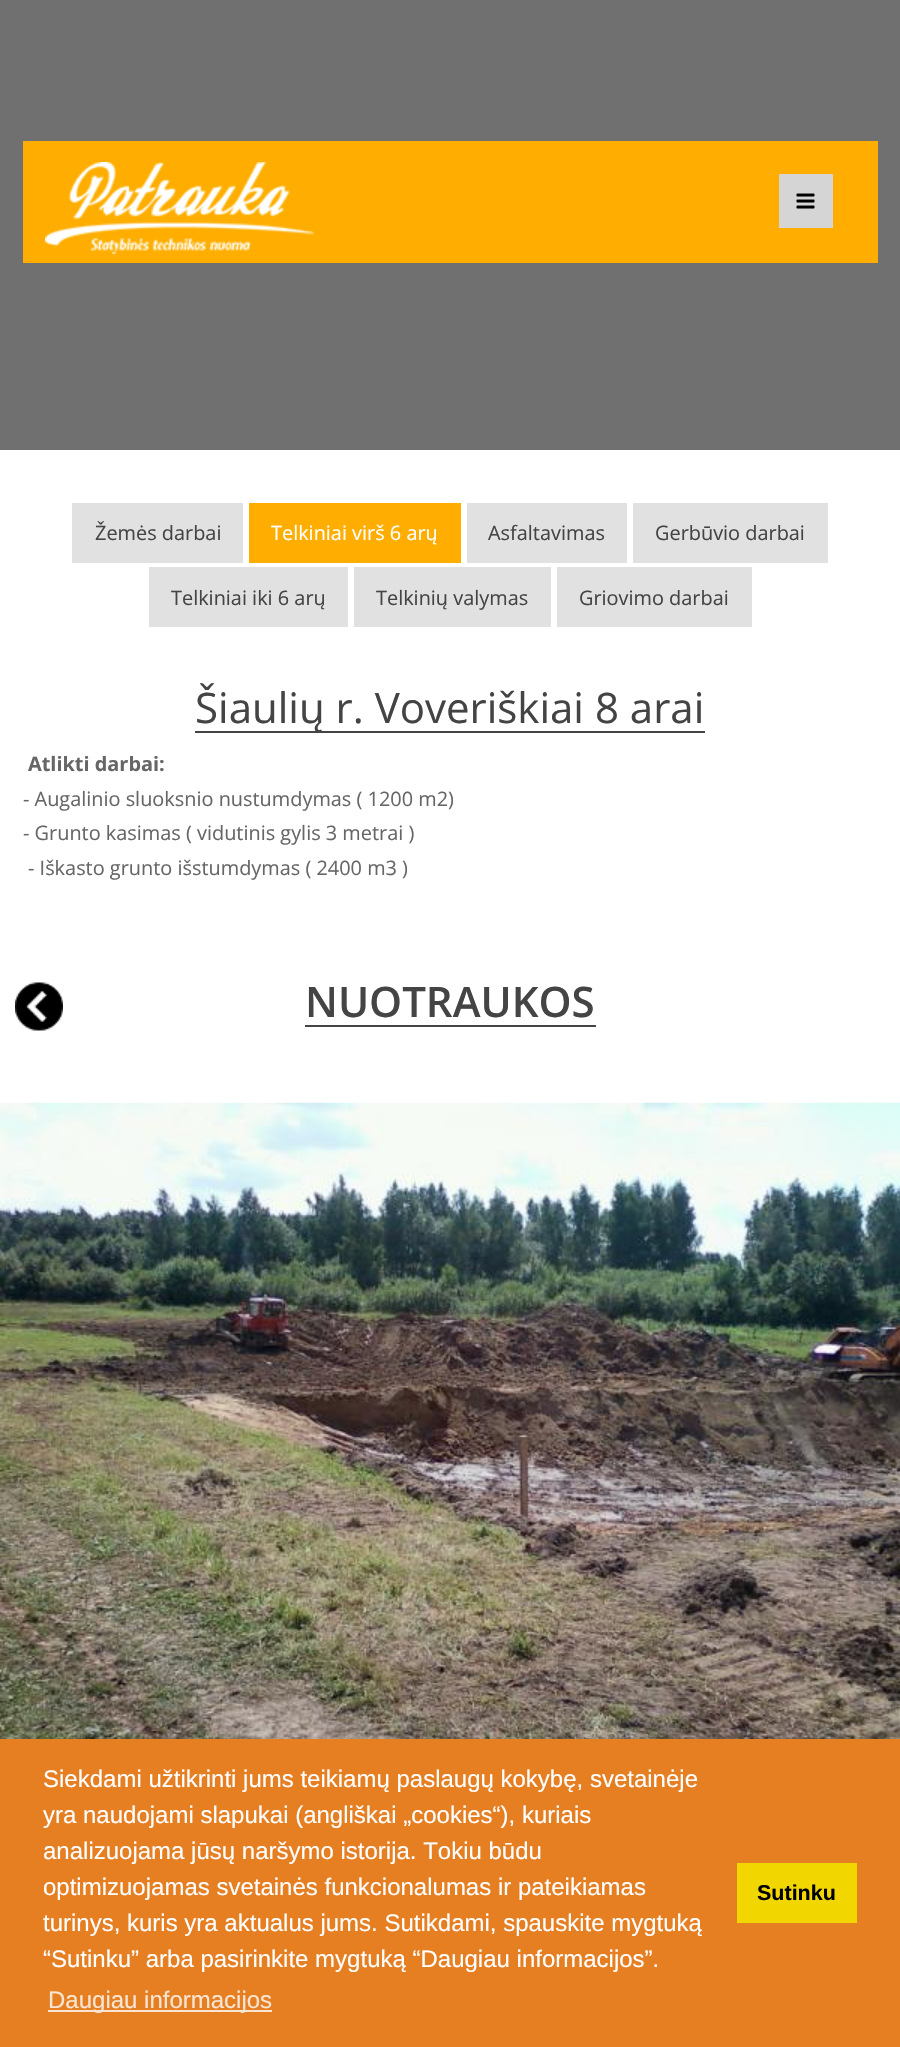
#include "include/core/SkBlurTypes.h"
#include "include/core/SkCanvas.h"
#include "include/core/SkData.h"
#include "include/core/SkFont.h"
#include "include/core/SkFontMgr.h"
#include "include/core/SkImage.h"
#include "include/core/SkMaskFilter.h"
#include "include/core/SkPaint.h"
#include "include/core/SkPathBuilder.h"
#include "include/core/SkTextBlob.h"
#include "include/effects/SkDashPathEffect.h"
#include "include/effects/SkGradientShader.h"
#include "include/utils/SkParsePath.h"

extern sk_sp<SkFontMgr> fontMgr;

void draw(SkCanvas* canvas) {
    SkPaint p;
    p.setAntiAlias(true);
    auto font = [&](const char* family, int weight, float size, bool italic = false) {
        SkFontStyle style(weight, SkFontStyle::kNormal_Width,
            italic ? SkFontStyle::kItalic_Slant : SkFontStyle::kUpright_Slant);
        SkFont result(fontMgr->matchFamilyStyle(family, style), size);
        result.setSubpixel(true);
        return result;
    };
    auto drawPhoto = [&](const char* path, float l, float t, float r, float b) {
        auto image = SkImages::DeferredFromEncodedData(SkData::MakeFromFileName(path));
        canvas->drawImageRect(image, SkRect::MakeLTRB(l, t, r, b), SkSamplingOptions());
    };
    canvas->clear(0xFFFFFFFF);
    p.setColor(0xFF707070);
    canvas->drawRect(SkRect::MakeLTRB(0, 0, 900, 450), p);
    p.setColor(0xFFFFAE00);
    canvas->drawRect(SkRect::MakeLTRB(23, 141, 878, 263), p);
    drawPhoto("media/1.png", 45, 162, 315, 254);
    p.setColor(0xFFD5D5D5);
    canvas->drawRect(SkRect::MakeLTRB(779, 174, 833, 228), p);
    drawPhoto("media/2.png", 796, 193, 815, 209);
    p.setColor(0xFFE2E1E1);
    canvas->drawRect(SkRect::MakeLTRB(72, 503, 243, 563), p);
    auto font1 = font("Open Sans", 400, 19.9f);
    p.setColor(0xFF444444);
    canvas->drawString("Žemės darbai", 95, 540, font1, p);
    p.setColor(0xFFFFAE00);
    canvas->drawRect(SkRect::MakeLTRB(249, 503, 461, 563), p);
    p.setColor(0xFFFFFFFF);
    canvas->drawString("Telkiniai virš 6 arų", 271, 540, font1, p);
    p.setColor(0xFFE2E1E1);
    canvas->drawRect(SkRect::MakeLTRB(467, 503, 627, 563), p);
    p.setColor(0xFF444444);
    canvas->drawString("Asfaltavimas", 488, 540, font1, p);
    p.setColor(0xFFE2E1E1);
    canvas->drawRect(SkRect::MakeLTRB(633, 503, 828, 563), p);
    p.setColor(0xFF444444);
    canvas->drawString("Gerbūvio darbai", 655, 540, font1, p);
    p.setColor(0xFFE2E1E1);
    canvas->drawRect(SkRect::MakeLTRB(149, 567, 348, 627), p);
    p.setColor(0xFF444444);
    canvas->drawString("Telkiniai iki 6 arų", 171, 605, font1, p);
    p.setColor(0xFFE2E1E1);
    canvas->drawRect(SkRect::MakeLTRB(354, 567, 551, 627), p);
    p.setColor(0xFF444444);
    canvas->drawString("Telkinių valymas", 376, 605, font1, p);
    p.setColor(0xFFE2E1E1);
    canvas->drawRect(SkRect::MakeLTRB(557, 567, 752, 627), p);
    p.setColor(0xFF444444);
    canvas->drawString("Griovimo darbai", 579, 605, font1, p);
    canvas->drawRect(SkRect::MakeLTRB(195, 731, 705, 733), p);
    auto font2 = font("Open Sans", 400, 42);
    canvas->drawString("Šiaulių r. Voveriškiai 8 arai", 195, 723, font2, p);
    auto font3 = font("Open Sans", 700, 19.9f);
    p.setColor(0xFF666666);
    canvas->drawString("Atlikti darbai:", 28, 771, font3, p);
    {
        const struct { const char* s; float x, y; } items[] = {
            {"- Augalinio sluoksnio nustumdymas ( 1200 m2)", 23, 806},
            {"- Grunto kasimas ( vidutinis gylis 3 metrai )", 23, 840},
            {"- Iškasto grunto išstumdymas ( 2400 m3 )", 28, 875},
        };
        for (auto [s, x, y] : items) {
            canvas->drawString(s, x, y, font1, p);
        }
    }
    p.setColor(0xFF444444);
    canvas->drawRect(SkRect::MakeLTRB(305, 1025, 596, 1027), p);
    auto font4 = font("Open Sans", 600, 42);
    canvas->drawString("NUOTRAUKOS", 305, 1017, font4, p);
    drawPhoto("media/3.png", 0, 1102, 900, 1739);
    drawPhoto("media/4.png", 15, 982, 63, 1031);
    p.setColor(0xFFE67E22);
    canvas->drawRect(SkRect::MakeLTRB(0, 1739, 900, 2047), p);
    auto font5 = font("Liberation Sans", 400, 24);
    p.setColor(0xFFFFFFFF);
    {
        const struct { const char* s; float x, y; } items[] = {
            {"Siekdami užtikrinti jums teikiamų paslaugų kokybę, svetainėje", 43, 1787},
            {"yra naudojami slapukai (angliškai „cookies“), kuriais", 43, 1823},
            {"analizuojama jūsų naršymo istorija. Tokiu būdu", 43, 1859},
            {"optimizuojamas svetainės funkcionalumas ir pateikiamas", 43, 1895},
            {"turinys, kuris yra aktualus jums. Sutikdami, spauskite mygtuką", 43, 1931},
            {"“Sutinku” arba pasirinkite mygtuką “Daugiau informacijos”.", 43, 1967},
        };
        for (auto [s, x, y] : items) {
            canvas->drawString(s, x, y, font5, p);
        }
    }
    p.setColor(0xFFFAE5D3);
    canvas->drawRect(SkRect::MakeLTRB(48, 2010, 272, 2012), p);
    canvas->drawString("Daugiau informacijos", 48, 2008, font5, p);
    p.setColor(0xFFF1D600);
    canvas->drawRect(SkRect::MakeLTRB(737, 1863, 857, 1923), p);
    auto font6 = font("Liberation Sans", 700, 21.5f);
    p.setColor(0xFF000000);
    canvas->drawString("Sutinku", 757, 1900, font6, p);
}
